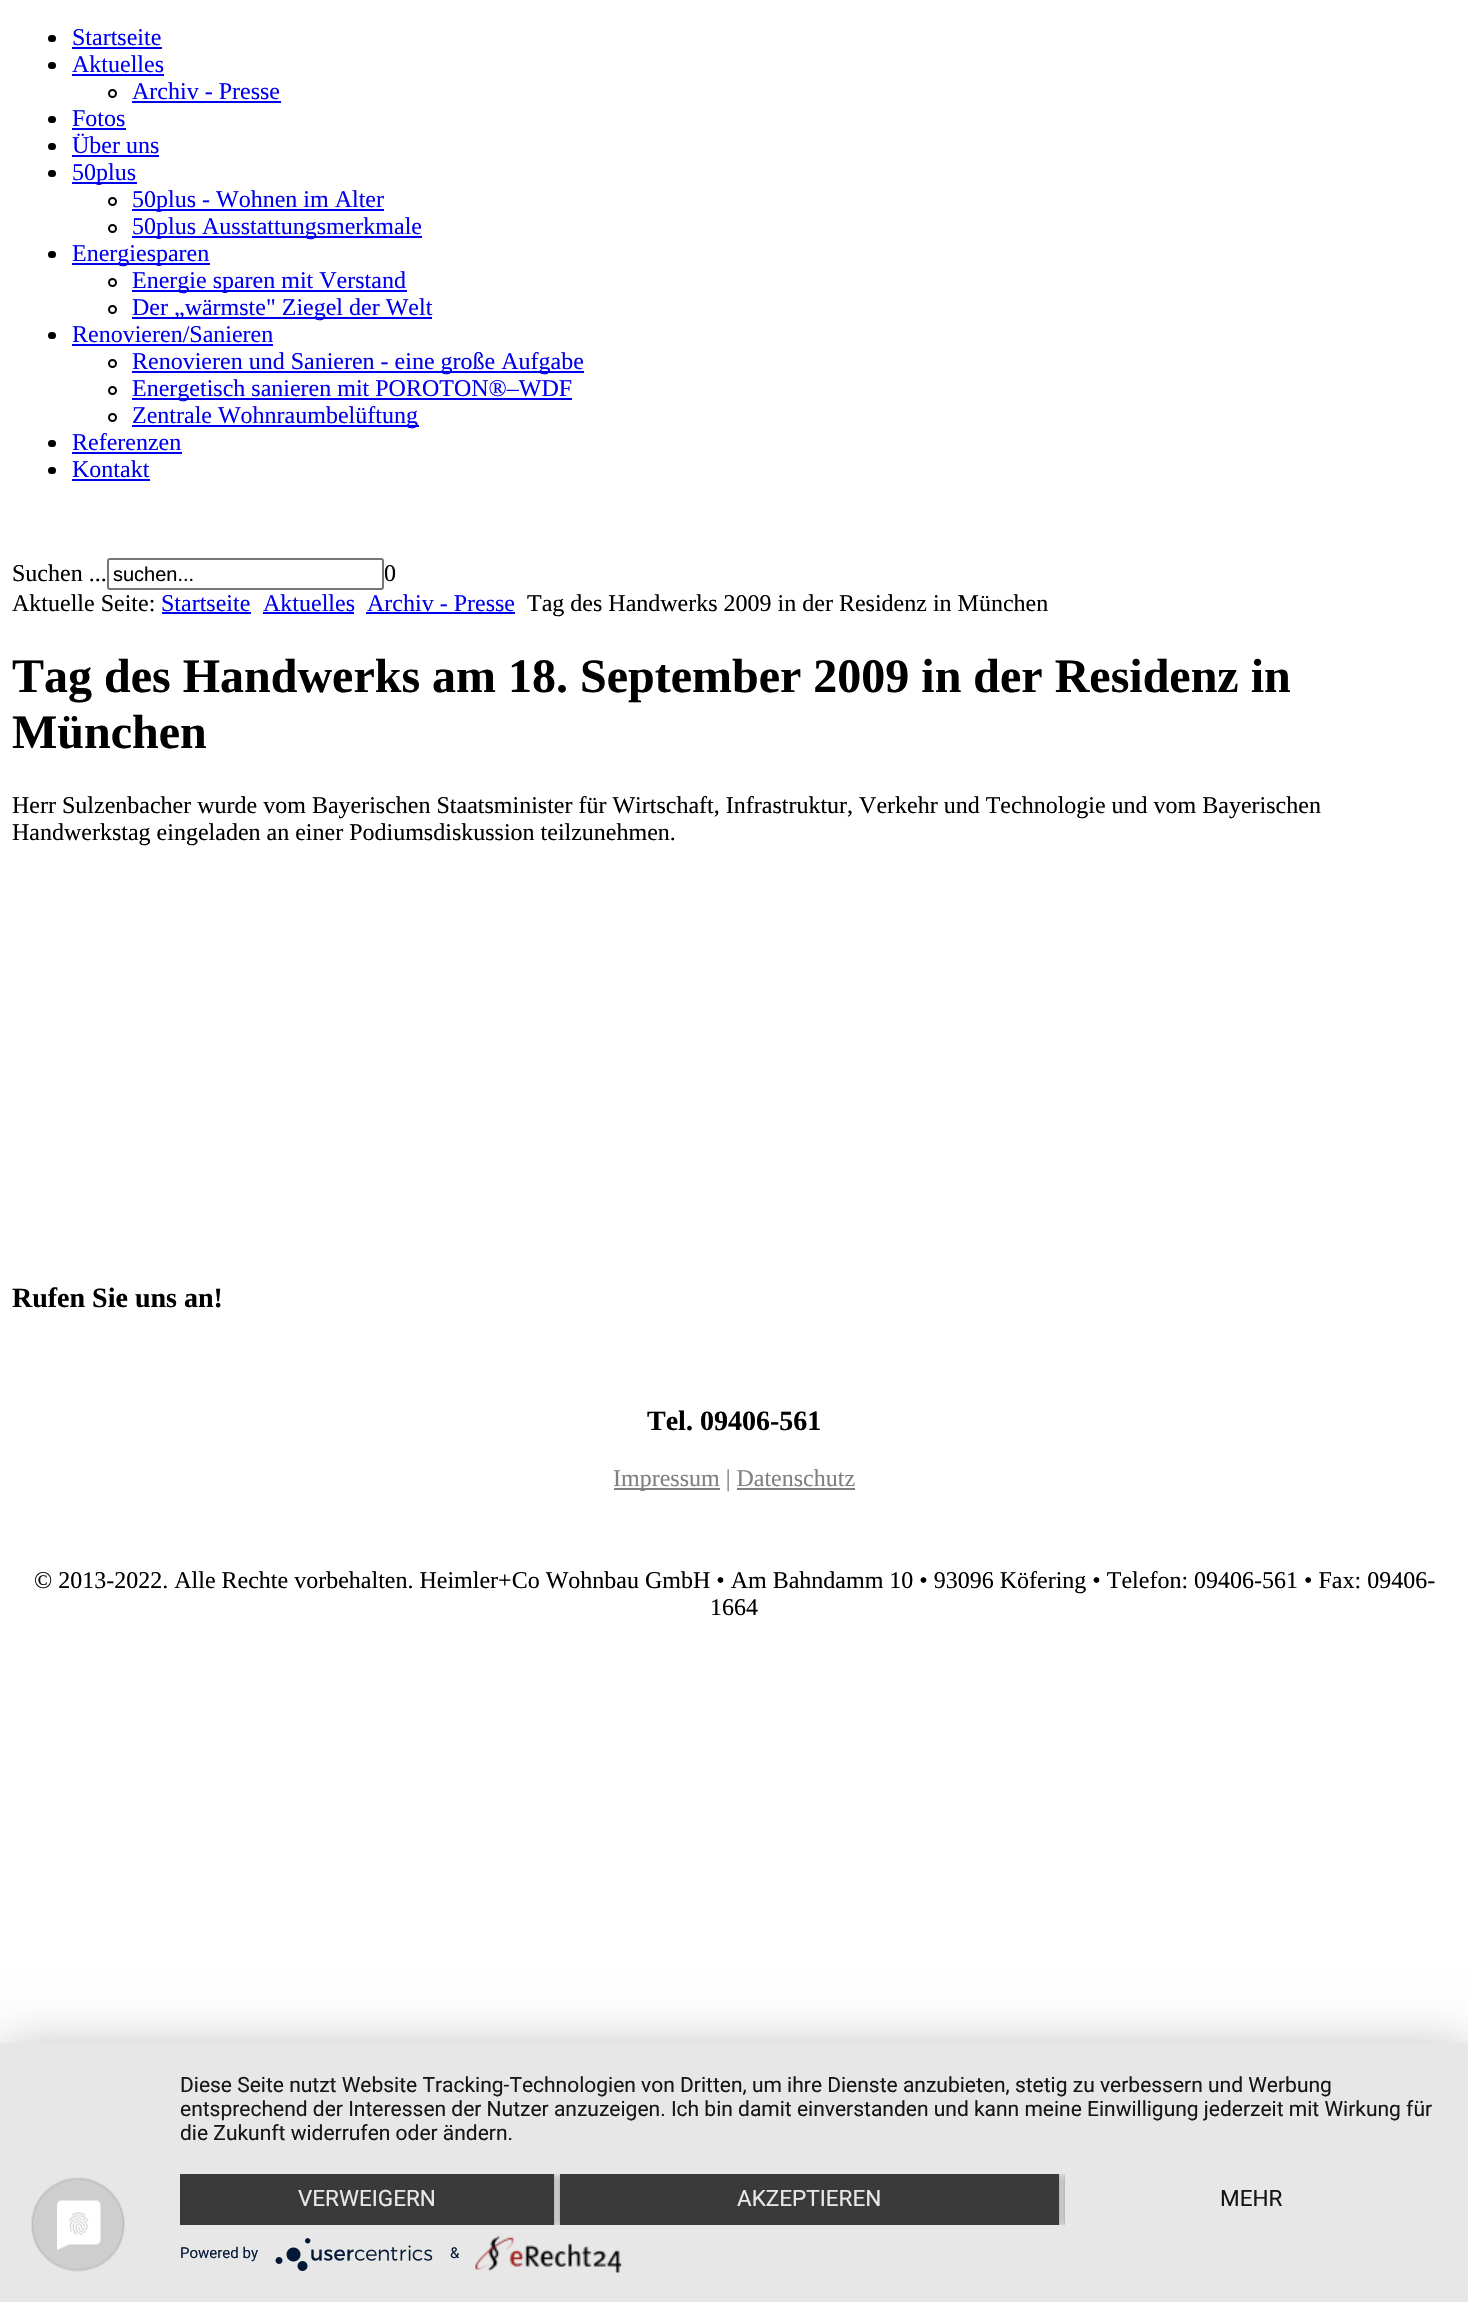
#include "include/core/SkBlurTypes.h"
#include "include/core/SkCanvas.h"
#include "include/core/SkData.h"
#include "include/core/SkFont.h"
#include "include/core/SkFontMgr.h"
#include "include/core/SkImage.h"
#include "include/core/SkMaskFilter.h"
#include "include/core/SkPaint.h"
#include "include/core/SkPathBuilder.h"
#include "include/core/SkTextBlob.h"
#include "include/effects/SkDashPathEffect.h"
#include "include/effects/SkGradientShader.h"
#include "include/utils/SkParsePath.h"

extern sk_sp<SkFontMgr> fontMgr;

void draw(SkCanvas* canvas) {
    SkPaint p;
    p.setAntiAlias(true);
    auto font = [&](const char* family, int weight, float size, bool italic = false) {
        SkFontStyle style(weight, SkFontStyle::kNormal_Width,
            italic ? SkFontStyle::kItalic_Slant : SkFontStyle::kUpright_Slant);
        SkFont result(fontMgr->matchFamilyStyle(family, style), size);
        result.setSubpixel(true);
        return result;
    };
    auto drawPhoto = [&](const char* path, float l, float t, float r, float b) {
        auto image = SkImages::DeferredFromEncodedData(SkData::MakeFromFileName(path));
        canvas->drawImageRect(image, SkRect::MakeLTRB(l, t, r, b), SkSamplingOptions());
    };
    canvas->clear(0xFFFFFFFF);
    p.setColor(0xFF000000);
    canvas->drawRoundRect(SkRect::MakeLTRB(48, 35, 56, 42), 3.5f, 3.5f, p);
    auto font1 = font("Liberation Serif", 400, 24);
    p.setColor(0xFF0000EE);
    canvas->drawString("Startseite", 72, 45, font1, p);
    canvas->drawRect(SkRect::MakeLTRB(72, 47, 162, 49), p);
    p.setColor(0xFF000000);
    canvas->drawRoundRect(SkRect::MakeLTRB(48, 62, 56, 69), 3.5f, 3.5f, p);
    p.setColor(0xFF0000EE);
    canvas->drawString("Aktuelles", 72, 72, font1, p);
    canvas->drawRect(SkRect::MakeLTRB(72, 74, 164, 76), p);
    p.setStyle(SkPaint::kStroke_Style);
    p.setStrokeWidth(2);
    p.setColor(0xFF000000);
    canvas->drawCircle(112.5f, 93.5f, 3.5f, p);
    p.setStyle(SkPaint::kFill_Style);
    p.setColor(0xFF0000EE);
    canvas->drawString("Archiv - Presse", 132, 99, font1, p);
    canvas->drawRect(SkRect::MakeLTRB(132, 101, 281, 103), p);
    p.setColor(0xFF000000);
    canvas->drawRoundRect(SkRect::MakeLTRB(48, 116, 56, 123), 3.5f, 3.5f, p);
    p.setColor(0xFF0000EE);
    canvas->drawString("Fotos", 72, 126, font1, p);
    canvas->drawRect(SkRect::MakeLTRB(72, 128, 126, 130), p);
    p.setColor(0xFF000000);
    canvas->drawRoundRect(SkRect::MakeLTRB(48, 143, 56, 150), 3.5f, 3.5f, p);
    p.setColor(0xFF0000EE);
    canvas->drawString("Über uns", 72, 153, font1, p);
    canvas->drawRect(SkRect::MakeLTRB(72, 155, 159, 157), p);
    p.setColor(0xFF000000);
    canvas->drawRoundRect(SkRect::MakeLTRB(48, 170, 56, 177), 3.5f, 3.5f, p);
    p.setColor(0xFF0000EE);
    canvas->drawRect(SkRect::MakeLTRB(72, 182, 137, 184), p);
    canvas->drawString("50plus", 72, 180, font1, p);
    p.setStyle(SkPaint::kStroke_Style);
    p.setColor(0xFF000000);
    canvas->drawCircle(112.5f, 201.5f, 3.5f, p);
    p.setStyle(SkPaint::kFill_Style);
    p.setColor(0xFF0000EE);
    canvas->drawRect(SkRect::MakeLTRB(132, 209, 384, 211), p);
    canvas->drawString("50plus - Wohnen im Alter", 132, 207, font1, p);
    p.setStyle(SkPaint::kStroke_Style);
    p.setColor(0xFF000000);
    canvas->drawCircle(112.5f, 228.5f, 3.5f, p);
    p.setStyle(SkPaint::kFill_Style);
    p.setColor(0xFF0000EE);
    canvas->drawRect(SkRect::MakeLTRB(132, 236, 422, 238), p);
    canvas->drawString("50plus Ausstattungsmerkmale", 132, 234, font1, p);
    p.setColor(0xFF000000);
    canvas->drawRoundRect(SkRect::MakeLTRB(48, 251, 56, 258), 3.5f, 3.5f, p);
    p.setColor(0xFF0000EE);
    canvas->drawRect(SkRect::MakeLTRB(72, 263, 210, 265), p);
    canvas->drawString("Energiesparen", 72, 261, font1, p);
    p.setStyle(SkPaint::kStroke_Style);
    p.setColor(0xFF000000);
    canvas->drawCircle(112.5f, 282.5f, 3.5f, p);
    p.setStyle(SkPaint::kFill_Style);
    p.setColor(0xFF0000EE);
    canvas->drawRect(SkRect::MakeLTRB(132, 290, 407, 292), p);
    canvas->drawString("Energie sparen mit Verstand", 132, 288, font1, p);
    p.setStyle(SkPaint::kStroke_Style);
    p.setColor(0xFF000000);
    canvas->drawCircle(112.5f, 309.5f, 3.5f, p);
    p.setStyle(SkPaint::kFill_Style);
    p.setColor(0xFF0000EE);
    canvas->drawRect(SkRect::MakeLTRB(132, 317, 432, 319), p);
    canvas->drawString("Der „wärmste\" Ziegel der Welt", 132, 315, font1, p);
    p.setColor(0xFF000000);
    canvas->drawRoundRect(SkRect::MakeLTRB(48, 332, 56, 339), 3.5f, 3.5f, p);
    p.setColor(0xFF0000EE);
    canvas->drawString("Renovieren/Sanieren", 72, 342, font1, p);
    canvas->drawRect(SkRect::MakeLTRB(72, 344, 273, 346), p);
    p.setStyle(SkPaint::kStroke_Style);
    p.setColor(0xFF000000);
    canvas->drawCircle(112.5f, 363.5f, 3.5f, p);
    p.setStyle(SkPaint::kFill_Style);
    p.setColor(0xFF0000EE);
    canvas->drawRect(SkRect::MakeLTRB(132, 371, 584, 373), p);
    canvas->drawString("Renovieren und Sanieren - eine große Aufgabe", 132, 369, font1, p);
    p.setStyle(SkPaint::kStroke_Style);
    p.setColor(0xFF000000);
    canvas->drawCircle(112.5f, 390.5f, 3.5f, p);
    p.setStyle(SkPaint::kFill_Style);
    p.setColor(0xFF0000EE);
    canvas->drawRect(SkRect::MakeLTRB(132, 398, 572, 400), p);
    canvas->drawString("Energetisch sanieren mit POROTON®–WDF", 132, 396, font1, p);
    p.setStyle(SkPaint::kStroke_Style);
    p.setColor(0xFF000000);
    canvas->drawCircle(112.5f, 417.5f, 3.5f, p);
    p.setStyle(SkPaint::kFill_Style);
    p.setColor(0xFF0000EE);
    canvas->drawRect(SkRect::MakeLTRB(132, 425, 419, 427), p);
    canvas->drawString("Zentrale Wohnraumbelüftung", 132, 423, font1, p);
    p.setColor(0xFF000000);
    canvas->drawRoundRect(SkRect::MakeLTRB(48, 440, 56, 447), 3.5f, 3.5f, p);
    p.setColor(0xFF0000EE);
    canvas->drawString("Referenzen", 72, 450, font1, p);
    canvas->drawRect(SkRect::MakeLTRB(72, 452, 182, 454), p);
    p.setColor(0xFF000000);
    canvas->drawRoundRect(SkRect::MakeLTRB(48, 467, 56, 474), 3.5f, 3.5f, p);
    p.setColor(0xFF0000EE);
    canvas->drawString("Kontakt", 72, 477, font1, p);
    canvas->drawRect(SkRect::MakeLTRB(72, 479, 150, 481), p);
    p.setColor(0xFF000000);
    canvas->drawString("Suchen ...", 12, 581, font1, p);
    p.setStyle(SkPaint::kStroke_Style);
    p.setColor(0xFF767676);
    canvas->drawRoundRect(SkRect::MakeLTRB(108, 559, 383, 589), 2, 2, p);
    auto font2 = font("Liberation Sans", 400, 20);
    p.setStyle(SkPaint::kFill_Style);
    p.setColor(0xFF000000);
    canvas->drawString("suchen...", 113, 581, font2, p);
    canvas->drawString("0", 384, 581, font1, p);
    canvas->drawString("Aktuelle Seite:", 12, 611, font1, p);
    p.setColor(0xFF0000EE);
    canvas->drawString("Startseite", 161, 611, font1, p);
    canvas->drawRect(SkRect::MakeLTRB(162, 612, 251, 614), p);
    canvas->drawString("Aktuelles", 263, 611, font1, p);
    canvas->drawRect(SkRect::MakeLTRB(263, 612, 354, 614), p);
    canvas->drawString("Archiv - Presse", 367, 611, font1, p);
    canvas->drawRect(SkRect::MakeLTRB(366, 612, 515, 614), p);
    p.setColor(0xFF000000);
    canvas->drawString("Tag des Handwerks 2009 in der Residenz in München", 527, 611, font1, p);
    auto font3 = font("Liberation Serif", 700, 48);
    canvas->drawString("Tag des Handwerks am 18. September 2009 in der Residenz in", 12, 692, font3, p);
    canvas->drawString("München", 12, 748, font3, p);
    canvas->drawString("Herr Sulzenbacher wurde vom Bayerischen Staatsminister für Wirtschaft, Infrastruktur, Verkehr und Technologie und vom Bayerischen", 12, 813, font1, p);
    canvas->drawString("Handwerkstag eingeladen an einer Podiumsdiskussion teilzunehmen.", 12, 840, font1, p);
    auto font4 = font("Liberation Serif", 700, 28);
    canvas->drawString("Rufen Sie uns an!", 12, 1307, font4, p);
    canvas->drawString("Tel. 09406-561", 647, 1430, font4, p);
    p.setColor(0xFF808080);
    canvas->drawRect(SkRect::MakeLTRB(614, 1488, 720, 1490), p);
    canvas->drawString("Impressum | Datenschutz", 613, 1486, font1, p);
    canvas->drawRect(SkRect::MakeLTRB(737, 1488, 855, 1490), p);
    p.setColor(0xFF000000);
    canvas->drawString("© 2013-2022. Alle Rechte vorbehalten. Heimler+Co Wohnbau GmbH • Am Bahndamm 10 • 93096 Köfering • Telefon: 09406-561 • Fax: 09406-", 34, 1588, font1, p);
    canvas->drawString("1664", 710, 1615, font1, p);
    p.setColor(0x4D000000);
    p.setMaskFilter(SkMaskFilter::MakeBlur(kNormal_SkBlurStyle, 27));
    canvas->drawRect(SkRect::MakeLTRB(0, 2052, 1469, 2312), p);
    p.setMaskFilter(nullptr);
    p.setColor(0xFFE7E7E7);
    canvas->drawRect(SkRect::MakeLTRB(0, 2043, 1468, 2302), p);
    drawPhoto("media/1.png", 31, 2177, 125, 2272);
    auto font5 = font("Roboto", 400, 21);
    p.setColor(0xFF161616);
    {
        const struct { const char* s; float x, y; } items[] = {
            {"Diese Seite nutzt Website Tracking-Technologien von Dritten, um ihre Dienste anzubieten, stetig zu verbessern und Werbung", 180, 2092},
            {"entsprechend der Interessen der Nutzer anzuzeigen. Ich bin damit einverstanden und kann meine Einwilligung jederzeit mit Wirkung für", 180, 2116},
            {"die Zukunft widerrufen oder ändern.", 180, 2140},
        };
        for (auto [s, x, y] : items) {
            canvas->drawString(s, x, y, font5, p);
        }
    }
    canvas->save();
    canvas->clipRect(SkRect::MakeLTRB(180, 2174, 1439, 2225));
    p.setColor(0x66000000);
    p.setMaskFilter(SkMaskFilter::MakeBlur(kNormal_SkBlurStyle, 3));
    canvas->drawRect(SkRect::MakeLTRB(180, 2175, 554, 2226), p);
    p.setMaskFilter(nullptr);
    canvas->restore();
    p.setColor(0xFF3A3A3A);
    canvas->drawRect(SkRect::MakeLTRB(180, 2174, 554, 2225), p);
    auto font6 = font("Roboto", 400, 22.5f);
    p.setColor(0xFFE7E7E7);
    canvas->drawString("VERWEIGERN", 298, 2206, font6, p);
    canvas->save();
    canvas->clipRect(SkRect::MakeLTRB(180, 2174, 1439, 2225));
    p.setColor(0x66000000);
    p.setMaskFilter(SkMaskFilter::MakeBlur(kNormal_SkBlurStyle, 3));
    canvas->drawRect(SkRect::MakeLTRB(560, 2175, 1059, 2226), p);
    p.setMaskFilter(nullptr);
    canvas->restore();
    p.setColor(0xFF3A3A3A);
    canvas->drawRect(SkRect::MakeLTRB(560, 2174, 1059, 2225), p);
    p.setColor(0xFFE7E7E7);
    canvas->drawString("AKZEPTIEREN", 737, 2206, font6, p);
    canvas->save();
    canvas->clipRect(SkRect::MakeLTRB(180, 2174, 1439, 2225));
    p.setColor(0x66000000);
    p.setMaskFilter(SkMaskFilter::MakeBlur(kNormal_SkBlurStyle, 3));
    canvas->drawRect(SkRect::MakeLTRB(1065, 2175, 1439, 2226), p);
    p.setMaskFilter(nullptr);
    canvas->restore();
    p.setColor(0xFFE7E7E7);
    canvas->drawRect(SkRect::MakeLTRB(1065, 2174, 1439, 2225), p);
    p.setColor(0xFF161616);
    canvas->drawString("MEHR", 1220, 2206, font6, p);
    auto font7 = font("Roboto", 400, 15);
    p.setColor(0xFF021836);
    canvas->drawString("Powered by", 180, 2258, font7, p);
    drawPhoto("media/2.png", 275, 2238, 433, 2271);
    canvas->drawString("&", 450, 2258, font7, p);
    drawPhoto("media/3.png", 475, 2236, 622, 2273);
}
